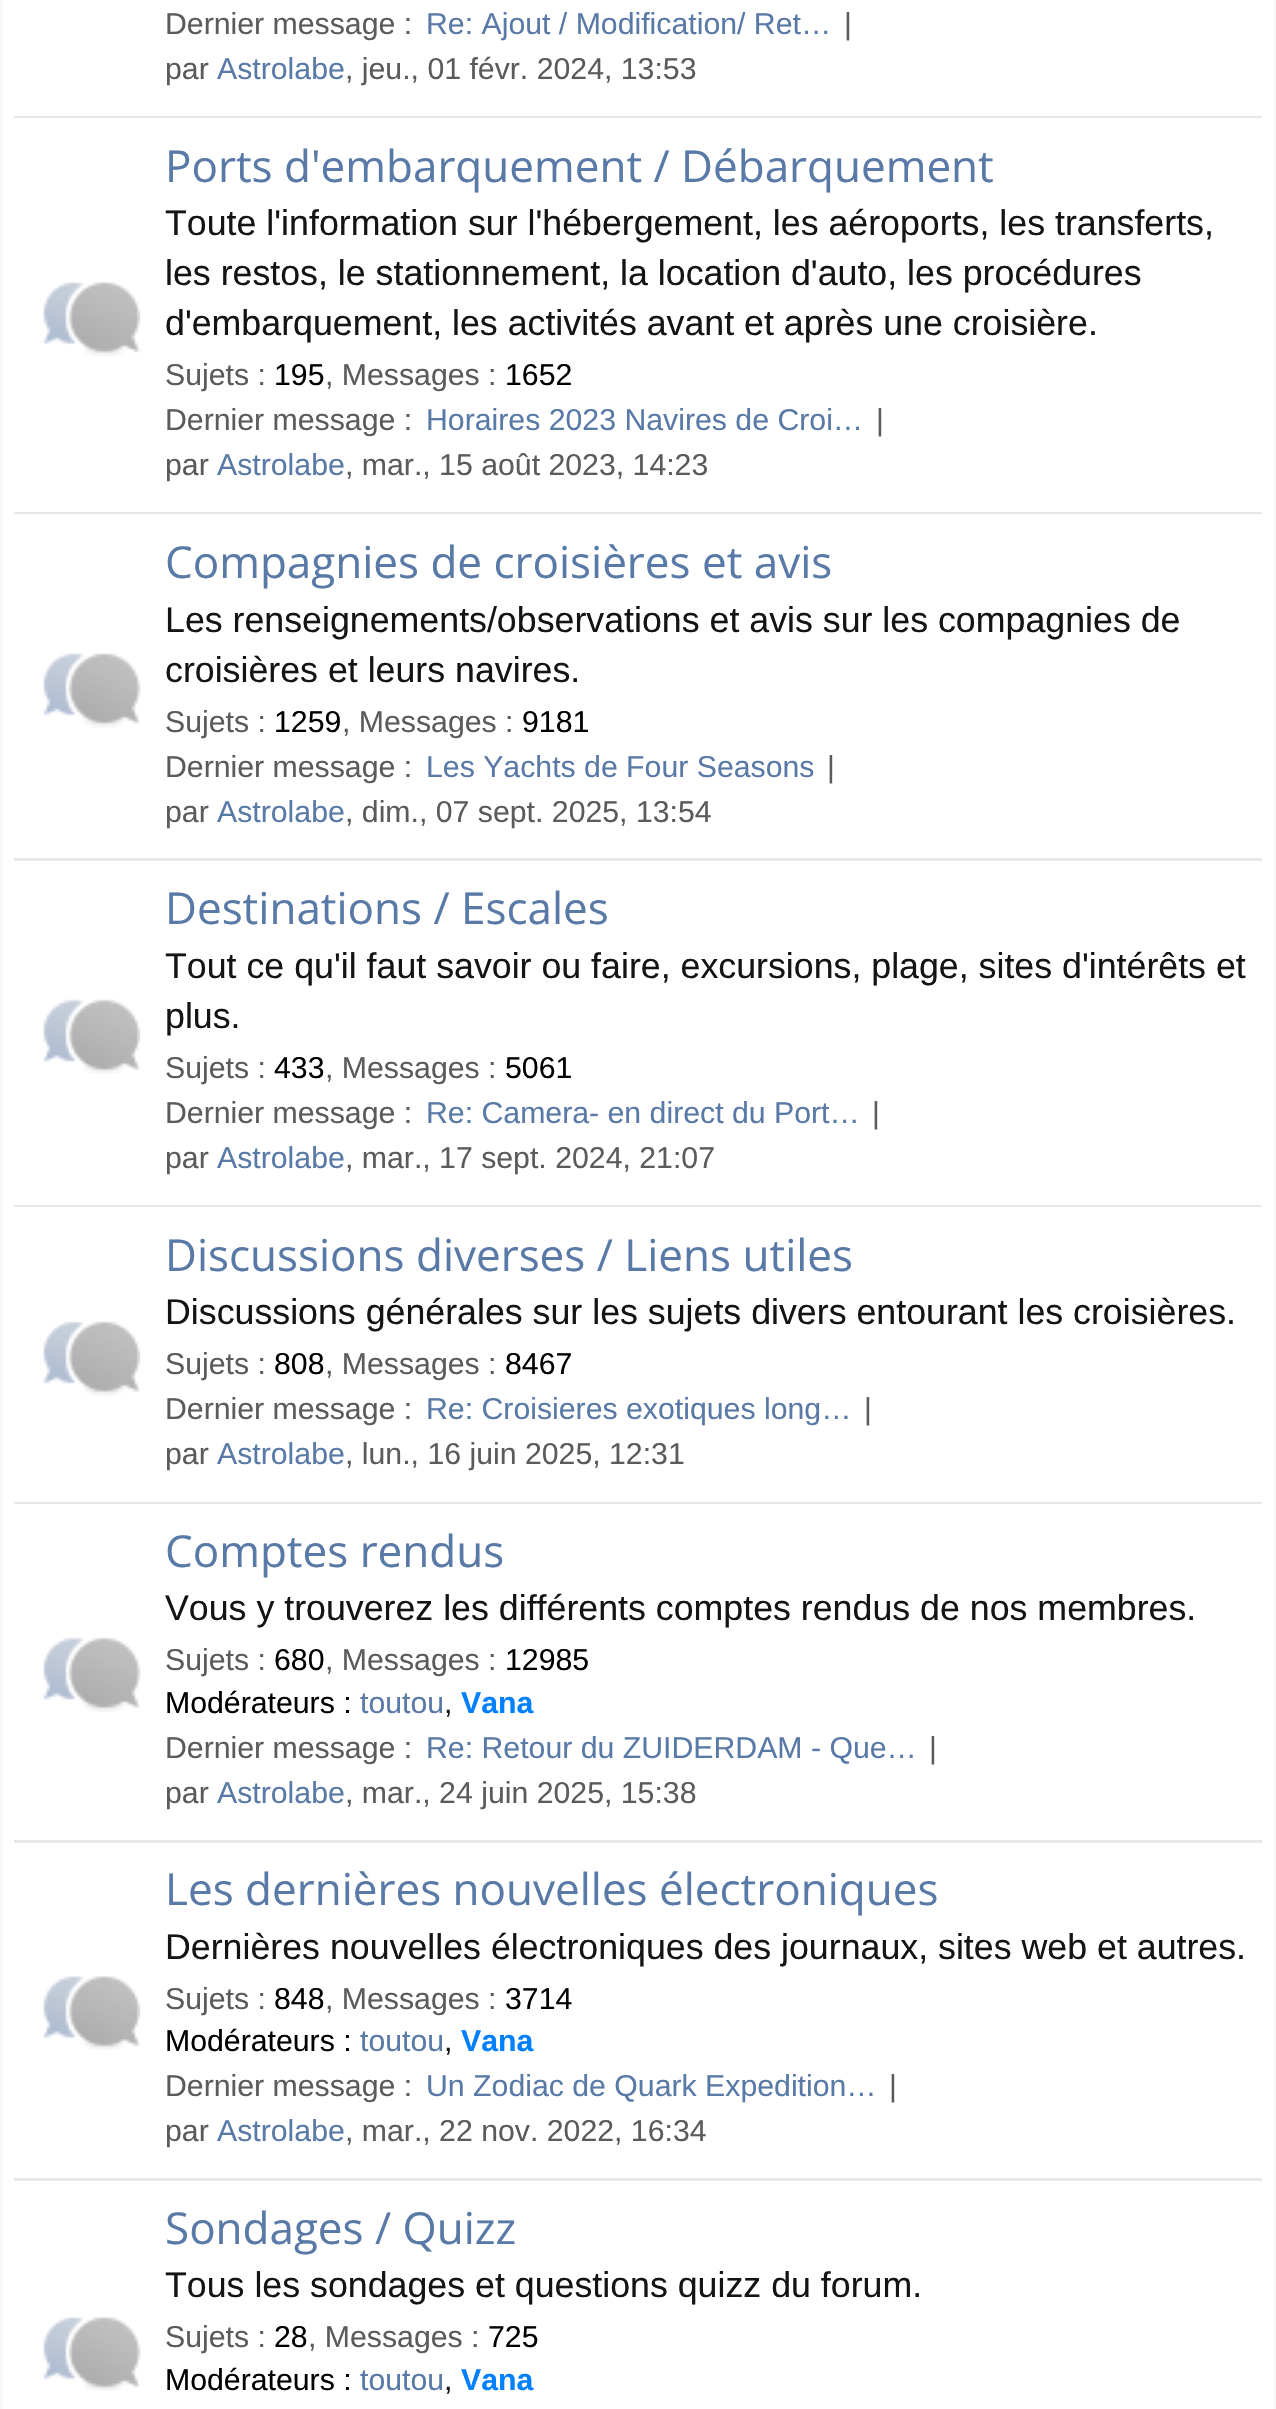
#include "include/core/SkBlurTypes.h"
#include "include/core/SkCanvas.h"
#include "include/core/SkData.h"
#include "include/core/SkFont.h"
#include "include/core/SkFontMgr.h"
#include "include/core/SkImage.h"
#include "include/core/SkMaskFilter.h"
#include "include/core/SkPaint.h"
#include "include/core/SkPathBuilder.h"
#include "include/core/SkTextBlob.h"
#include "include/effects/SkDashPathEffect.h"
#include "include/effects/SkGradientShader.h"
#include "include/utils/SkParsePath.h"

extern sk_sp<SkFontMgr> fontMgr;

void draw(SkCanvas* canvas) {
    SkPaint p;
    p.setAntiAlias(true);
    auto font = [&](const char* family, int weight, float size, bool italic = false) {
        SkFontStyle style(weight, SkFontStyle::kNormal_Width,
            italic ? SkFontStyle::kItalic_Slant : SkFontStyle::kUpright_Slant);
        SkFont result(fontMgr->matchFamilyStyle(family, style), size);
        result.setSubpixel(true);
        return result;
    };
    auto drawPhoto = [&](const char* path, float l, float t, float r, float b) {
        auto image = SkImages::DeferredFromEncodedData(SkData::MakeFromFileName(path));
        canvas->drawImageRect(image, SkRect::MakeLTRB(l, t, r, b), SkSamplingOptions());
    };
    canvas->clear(0xFFFFFFFF);
    p.setStyle(SkPaint::kStroke_Style);
    p.setStrokeWidth(3);
    p.setColor(0xFFF9F9F9);
    canvas->drawRect(SkRect::MakeLTRB(1.5f, -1.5f, 1274.5f, 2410.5f), p);
    p.setStyle(SkPaint::kFill_Style);
    p.setColor(0xFFE7E7E7);
    canvas->drawRect(SkRect::MakeLTRB(14, 116, 1262, 118), p);
    auto font1 = font("Liberation Sans", 400, 30.25f);
    p.setColor(0xFF5B5B5B);
    canvas->drawString("Dernier message :", 165, 34, font1, p);
    p.setColor(0xFF5979A7);
    canvas->drawString("Re: Ajout / Modification/ Ret…", 426, 34, font1, p);
    p.setColor(0xFF5B5B5B);
    canvas->drawString("|", 844, 34, font1, p);
    canvas->drawString("par", 165, 79, font1, p);
    p.setColor(0xFF5979A7);
    canvas->drawString("Astrolabe", 217, 79, font1, p);
    p.setColor(0xFF5B5B5B);
    canvas->drawString(", jeu., 01 févr. 2024, 13:53", 345, 79, font1, p);
    p.setColor(0xFFE7E7E7);
    canvas->drawRect(SkRect::MakeLTRB(14, 512, 1262, 514), p);
    drawPhoto("media/1.png", 43, 282, 141, 356);
    auto font2 = font("Open Sans", 400, 44);
    p.setColor(0xFF5979A7);
    canvas->drawString("Ports d'embarquement / Débarquement", 165, 182, font2, p);
    auto font3 = font("Liberation Sans", 400, 35.75f);
    p.setColor(0xFF141414);
    {
        const struct { const char* s; float x, y; } items[] = {
            {"Toute l'information sur l'hébergement, les aéroports, les transferts,", 165, 235},
            {"les restos, le stationnement, la location d'auto, les procédures", 165, 285},
            {"d'embarquement, les activités avant et après une croisière.", 165, 335},
        };
        for (auto [s, x, y] : items) {
            canvas->drawString(s, x, y, font3, p);
        }
    }
    p.setColor(0xFF5B5B5B);
    canvas->drawString("Sujets :", 165, 385, font1, p);
    p.setColor(0xFF000000);
    canvas->drawString("195", 274, 385, font1, p);
    p.setColor(0xFF5B5B5B);
    canvas->drawString(", Messages :", 325, 385, font1, p);
    p.setColor(0xFF000000);
    canvas->drawString("1652", 505, 385, font1, p);
    p.setColor(0xFF5B5B5B);
    canvas->drawString("Dernier message :", 165, 430, font1, p);
    p.setColor(0xFF5979A7);
    canvas->drawString("Horaires 2023 Navires de Croi…", 426, 430, font1, p);
    p.setColor(0xFF5B5B5B);
    canvas->drawString("|", 876, 430, font1, p);
    canvas->drawString("par", 165, 475, font1, p);
    p.setColor(0xFF5979A7);
    canvas->drawString("Astrolabe", 217, 475, font1, p);
    p.setColor(0xFF5B5B5B);
    canvas->drawString(", mar., 15 août 2023, 14:23", 345, 475, font1, p);
    p.setColor(0xFFE7E7E7);
    canvas->drawRect(SkRect::MakeLTRB(14, 858, 1262, 861), p);
    drawPhoto("media/2.png", 43, 653, 141, 728);
    p.setColor(0xFF5979A7);
    canvas->drawString("Compagnies de croisières et avis", 165, 578, font2, p);
    p.setColor(0xFF141414);
    canvas->drawString("Les renseignements/observations et avis sur les compagnies de", 165, 632, font3, p);
    canvas->drawString("croisières et leurs navires.", 165, 682, font3, p);
    p.setColor(0xFF5B5B5B);
    canvas->drawString("Sujets :", 165, 732, font1, p);
    p.setColor(0xFF000000);
    canvas->drawString("1259", 274, 732, font1, p);
    p.setColor(0xFF5B5B5B);
    canvas->drawString(", Messages :", 342, 732, font1, p);
    p.setColor(0xFF000000);
    canvas->drawString("9181", 522, 732, font1, p);
    p.setColor(0xFF5B5B5B);
    canvas->drawString("Dernier message :", 165, 777, font1, p);
    p.setColor(0xFF5979A7);
    canvas->drawString("Les Yachts de Four Seasons", 426, 777, font1, p);
    p.setColor(0xFF5B5B5B);
    canvas->drawString("|", 827, 777, font1, p);
    canvas->drawString("par", 165, 822, font1, p);
    p.setColor(0xFF5979A7);
    canvas->drawString("Astrolabe", 217, 822, font1, p);
    p.setColor(0xFF5B5B5B);
    canvas->drawString(", dim., 07 sept. 2025, 13:54", 345, 822, font1, p);
    p.setColor(0xFFE7E7E7);
    canvas->drawRect(SkRect::MakeLTRB(14, 1205, 1262, 1207), p);
    drawPhoto("media/3.png", 43, 999, 141, 1074);
    p.setColor(0xFF5979A7);
    canvas->drawString("Destinations / Escales", 165, 924, font2, p);
    p.setColor(0xFF141414);
    canvas->drawString("Tout ce qu'il faut savoir ou faire, excursions, plage, sites d'intérêts et", 165, 978, font3, p);
    canvas->drawString("plus.", 165, 1028, font3, p);
    p.setColor(0xFF5B5B5B);
    canvas->drawString("Sujets :", 165, 1078, font1, p);
    p.setColor(0xFF000000);
    canvas->drawString("433", 274, 1078, font1, p);
    p.setColor(0xFF5B5B5B);
    canvas->drawString(", Messages :", 325, 1078, font1, p);
    p.setColor(0xFF000000);
    canvas->drawString("5061", 505, 1078, font1, p);
    p.setColor(0xFF5B5B5B);
    canvas->drawString("Dernier message :", 165, 1123, font1, p);
    p.setColor(0xFF5979A7);
    canvas->drawString("Re: Camera- en direct du Port…", 426, 1123, font1, p);
    p.setColor(0xFF5B5B5B);
    canvas->drawString("|", 872, 1123, font1, p);
    canvas->drawString("par", 165, 1168, font1, p);
    p.setColor(0xFF5979A7);
    canvas->drawString("Astrolabe", 217, 1168, font1, p);
    p.setColor(0xFF5B5B5B);
    canvas->drawString(", mar., 17 sept. 2024, 21:07", 345, 1168, font1, p);
    p.setColor(0xFFE7E7E7);
    canvas->drawRect(SkRect::MakeLTRB(14, 1502, 1262, 1504), p);
    drawPhoto("media/4.png", 43, 1321, 141, 1396);
    p.setColor(0xFF5979A7);
    canvas->drawString("Discussions diverses / Liens utiles", 165, 1271, font2, p);
    p.setColor(0xFF141414);
    canvas->drawString("Discussions générales sur les sujets divers entourant les croisières.", 165, 1324, font3, p);
    p.setColor(0xFF5B5B5B);
    canvas->drawString("Sujets :", 165, 1374, font1, p);
    p.setColor(0xFF000000);
    canvas->drawString("808", 274, 1374, font1, p);
    p.setColor(0xFF5B5B5B);
    canvas->drawString(", Messages :", 325, 1374, font1, p);
    p.setColor(0xFF000000);
    canvas->drawString("8467", 505, 1374, font1, p);
    p.setColor(0xFF5B5B5B);
    canvas->drawString("Dernier message :", 165, 1419, font1, p);
    p.setColor(0xFF5979A7);
    canvas->drawString("Re: Croisieres exotiques long…", 426, 1419, font1, p);
    p.setColor(0xFF5B5B5B);
    canvas->drawString("|", 864, 1419, font1, p);
    canvas->drawString("par", 165, 1464, font1, p);
    p.setColor(0xFF5979A7);
    canvas->drawString("Astrolabe", 217, 1464, font1, p);
    p.setColor(0xFF5B5B5B);
    canvas->drawString(", lun., 16 juin 2025, 12:31", 345, 1464, font1, p);
    p.setColor(0xFFE7E7E7);
    canvas->drawRect(SkRect::MakeLTRB(14, 1840, 1262, 1843), p);
    drawPhoto("media/3.png", 43, 1637, 141, 1712);
    p.setColor(0xFF5979A7);
    canvas->drawString("Comptes rendus", 165, 1567, font2, p);
    p.setColor(0xFF141414);
    canvas->drawString("Vous y trouverez les différents comptes rendus de nos membres.", 165, 1620, font3, p);
    p.setColor(0xFF5B5B5B);
    canvas->drawString("Sujets :", 165, 1670, font1, p);
    p.setColor(0xFF000000);
    canvas->drawString("680", 274, 1670, font1, p);
    p.setColor(0xFF5B5B5B);
    canvas->drawString(", Messages :", 325, 1670, font1, p);
    p.setColor(0xFF000000);
    canvas->drawString("12985", 505, 1670, font1, p);
    canvas->drawString("Modérateurs :", 165, 1713, font1, p);
    p.setColor(0xFF5979A7);
    canvas->drawString("toutou", 360, 1713, font1, p);
    p.setColor(0xFF141414);
    canvas->drawString(",", 444, 1713, font1, p);
    auto font4 = font("Liberation Sans", 700, 30.25f);
    p.setColor(0xFF0080FF);
    canvas->drawString("Vana", 461, 1713, font4, p);
    p.setColor(0xFF5B5B5B);
    canvas->drawString("Dernier message :", 165, 1758, font1, p);
    p.setColor(0xFF5979A7);
    canvas->drawString("Re: Retour du ZUIDERDAM - Que…", 426, 1758, font1, p);
    p.setColor(0xFF5B5B5B);
    canvas->drawString("|", 929, 1758, font1, p);
    canvas->drawString("par", 165, 1803, font1, p);
    p.setColor(0xFF5979A7);
    canvas->drawString("Astrolabe", 217, 1803, font1, p);
    p.setColor(0xFF5B5B5B);
    canvas->drawString(", mar., 24 juin 2025, 15:38", 345, 1803, font1, p);
    p.setColor(0xFFE7E7E7);
    canvas->drawRect(SkRect::MakeLTRB(14, 2178, 1262, 2181), p);
    drawPhoto("media/1.png", 43, 1976, 141, 2050);
    p.setColor(0xFF5979A7);
    canvas->drawString("Les dernières nouvelles électroniques", 165, 1905, font2, p);
    p.setColor(0xFF141414);
    canvas->drawString("Dernières nouvelles électroniques des journaux, sites web et autres.", 165, 1959, font3, p);
    p.setColor(0xFF5B5B5B);
    canvas->drawString("Sujets :", 165, 2009, font1, p);
    p.setColor(0xFF000000);
    canvas->drawString("848", 274, 2009, font1, p);
    p.setColor(0xFF5B5B5B);
    canvas->drawString(", Messages :", 325, 2009, font1, p);
    p.setColor(0xFF000000);
    canvas->drawString("3714", 505, 2009, font1, p);
    canvas->drawString("Modérateurs :", 165, 2051, font1, p);
    p.setColor(0xFF5979A7);
    canvas->drawString("toutou", 360, 2051, font1, p);
    p.setColor(0xFF141414);
    canvas->drawString(",", 444, 2051, font1, p);
    p.setColor(0xFF0080FF);
    canvas->drawString("Vana", 461, 2051, font4, p);
    p.setColor(0xFF5B5B5B);
    canvas->drawString("Dernier message :", 165, 2096, font1, p);
    p.setColor(0xFF5979A7);
    canvas->drawString("Un Zodiac de Quark Expedition…", 426, 2096, font1, p);
    p.setColor(0xFF5B5B5B);
    canvas->drawString("|", 889, 2096, font1, p);
    canvas->drawString("par", 165, 2141, font1, p);
    p.setColor(0xFF5979A7);
    canvas->drawString("Astrolabe", 217, 2141, font1, p);
    p.setColor(0xFF5B5B5B);
    canvas->drawString(", mar., 22 nov. 2022, 16:34", 345, 2141, font1, p);
    drawPhoto("media/1.png", 43, 2317, 141, 2391);
    p.setColor(0xFF5979A7);
    canvas->drawString("Sondages / Quizz", 165, 2244, font2, p);
    p.setColor(0xFF141414);
    canvas->drawString("Tous les sondages et questions quizz du forum.", 165, 2297, font3, p);
    p.setColor(0xFF5B5B5B);
    canvas->drawString("Sujets :", 165, 2347, font1, p);
    p.setColor(0xFF000000);
    canvas->drawString("28", 274, 2347, font1, p);
    p.setColor(0xFF5B5B5B);
    canvas->drawString(", Messages :", 308, 2347, font1, p);
    p.setColor(0xFF000000);
    canvas->drawString("725", 488, 2347, font1, p);
    canvas->drawString("Modérateurs :", 165, 2390, font1, p);
    p.setColor(0xFF5979A7);
    canvas->drawString("toutou", 360, 2390, font1, p);
    p.setColor(0xFF141414);
    canvas->drawString(",", 444, 2390, font1, p);
    p.setColor(0xFF0080FF);
    canvas->drawString("Vana", 461, 2390, font4, p);
}
